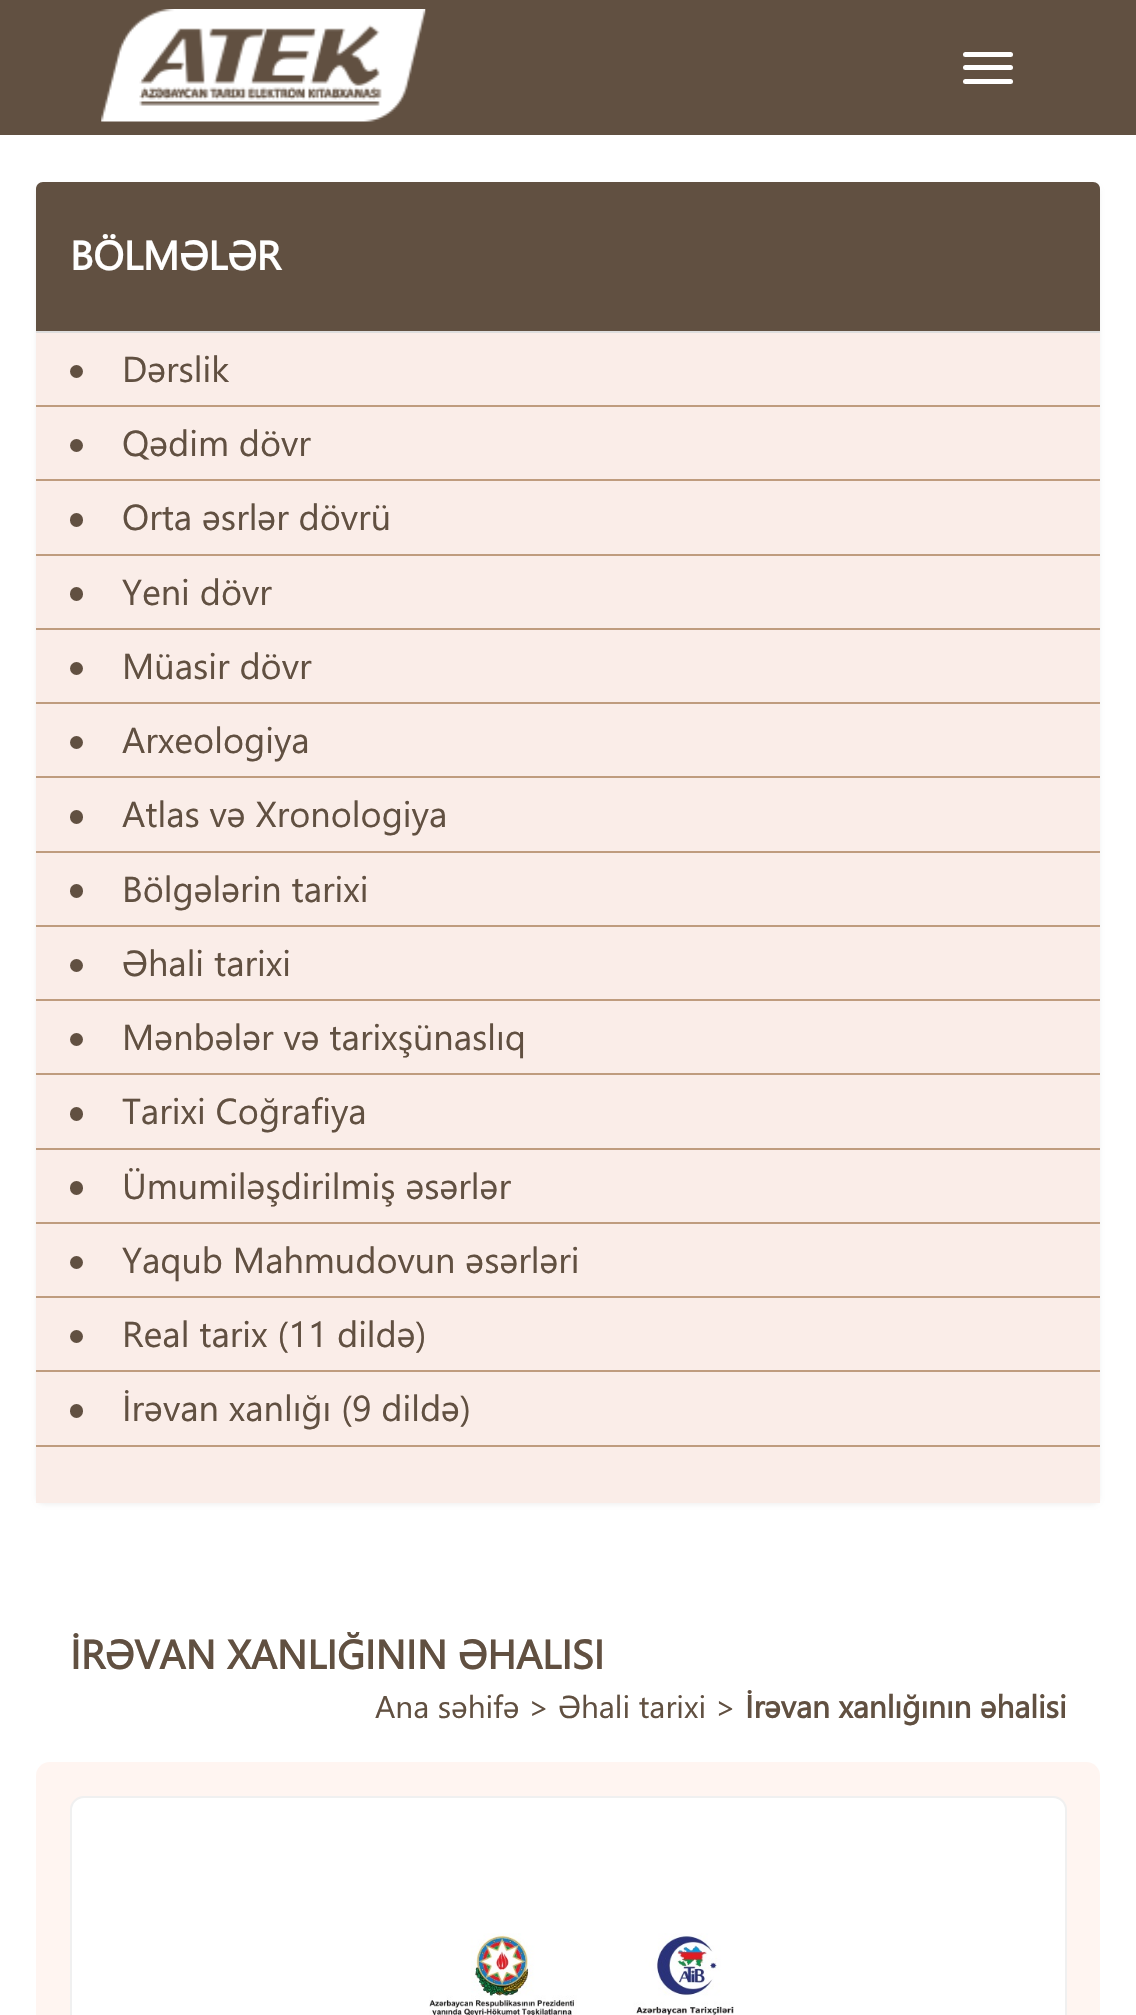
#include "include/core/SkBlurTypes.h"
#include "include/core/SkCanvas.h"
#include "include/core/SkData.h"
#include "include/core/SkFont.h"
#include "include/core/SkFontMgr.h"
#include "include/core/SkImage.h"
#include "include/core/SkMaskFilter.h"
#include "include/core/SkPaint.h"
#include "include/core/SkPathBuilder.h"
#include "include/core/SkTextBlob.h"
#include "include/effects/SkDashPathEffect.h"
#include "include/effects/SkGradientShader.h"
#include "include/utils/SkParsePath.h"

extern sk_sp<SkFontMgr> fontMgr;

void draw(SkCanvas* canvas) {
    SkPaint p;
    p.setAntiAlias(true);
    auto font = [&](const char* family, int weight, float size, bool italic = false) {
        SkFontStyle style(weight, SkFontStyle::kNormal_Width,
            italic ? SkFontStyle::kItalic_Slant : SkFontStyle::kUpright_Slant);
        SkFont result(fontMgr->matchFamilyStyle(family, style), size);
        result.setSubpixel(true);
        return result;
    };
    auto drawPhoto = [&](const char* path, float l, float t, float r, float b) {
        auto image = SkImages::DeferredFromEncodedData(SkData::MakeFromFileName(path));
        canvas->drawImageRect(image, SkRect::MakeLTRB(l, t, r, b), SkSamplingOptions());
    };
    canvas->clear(0xFFFFFFFF);
    p.setColor(0xFF615041);
    canvas->drawRect(SkRect::MakeLTRB(0, 0, 1136, 135), p);
    drawPhoto("media/1.png", 101, 9, 426, 122);
    p.setColor(0xFFFFFFFF);
    canvas->drawRoundRect(SkRect::MakeLTRB(963, 52, 1013, 57), 2.5f, 2.5f, p);
    canvas->drawRoundRect(SkRect::MakeLTRB(963, 65, 1013, 70), 2.5f, 2.5f, p);
    canvas->drawRoundRect(SkRect::MakeLTRB(963, 79, 1013, 84), 2.5f, 2.5f, p);
    p.setColor(0x0D000000);
    p.setMaskFilter(SkMaskFilter::MakeBlur(kNormal_SkBlurStyle, 2));
    canvas->drawRoundRect(SkRect::MakeLTRB(36, 185, 1100, 1505), 9, 9, p);
    p.setMaskFilter(nullptr);
    p.setColor(0xFF615041);
    canvas->drawPath(SkPathBuilder().moveTo(43, 182).lineTo(1093, 182).cubicTo(1097, 182, 1100, 185, 1100, 189).lineTo(1100, 333).lineTo(36, 333).lineTo(36, 189).cubicTo(36, 185, 39, 182, 43, 182).close().detach(), p);
    p.setColor(0xFFDDDDDD);
    canvas->drawRect(SkRect::MakeLTRB(36, 331, 1100, 333), p);
    auto font1 = font("Segoe UI", 700, 40.5f);
    p.setColor(0xFFFFFFFF);
    canvas->drawString("BÖLMƏLƏR", 70, 270, font1, p);
    p.setColor(0xFFFAEDE8);
    canvas->drawRect(SkRect::MakeLTRB(36, 333, 1100, 1503), p);
    p.setColor(0xFFBF9C7E);
    canvas->drawRect(SkRect::MakeLTRB(36, 405, 1100, 407), p);
    p.setColor(0xFF615041);
    canvas->drawCircle(76.5f, 371.5f, 6.5f, p);
    auto font2 = font("Segoe UI", 400, 36);
    canvas->drawString("Dərslik", 122, 382, font2, p);
    p.setColor(0xFFBF9C7E);
    canvas->drawRect(SkRect::MakeLTRB(36, 479, 1100, 481), p);
    p.setColor(0xFF615041);
    canvas->drawCircle(76.5f, 445.5f, 6.5f, p);
    canvas->drawString("Qədim dövr", 122, 456, font2, p);
    p.setColor(0xFFBF9C7E);
    canvas->drawRect(SkRect::MakeLTRB(36, 554, 1100, 556), p);
    p.setColor(0xFF615041);
    canvas->drawRoundRect(SkRect::MakeLTRB(70, 513, 83, 527), 6.5f, 6.5f, p);
    canvas->drawString("Orta əsrlər dövrü", 122, 530, font2, p);
    p.setColor(0xFFBF9C7E);
    canvas->drawRect(SkRect::MakeLTRB(36, 628, 1100, 630), p);
    p.setColor(0xFF615041);
    canvas->drawRoundRect(SkRect::MakeLTRB(70, 587, 83, 601), 6.5f, 6.5f, p);
    canvas->drawString("Yeni dövr", 122, 605, font2, p);
    p.setColor(0xFFBF9C7E);
    canvas->drawRect(SkRect::MakeLTRB(36, 702, 1100, 704), p);
    p.setColor(0xFF615041);
    canvas->drawCircle(76.5f, 668.5f, 6.5f, p);
    canvas->drawString("Müasir dövr", 122, 679, font2, p);
    p.setColor(0xFFBF9C7E);
    canvas->drawRect(SkRect::MakeLTRB(36, 776, 1100, 778), p);
    p.setColor(0xFF615041);
    canvas->drawCircle(76.5f, 742.5f, 6.5f, p);
    canvas->drawString("Arxeologiya", 122, 753, font2, p);
    p.setColor(0xFFBF9C7E);
    canvas->drawRect(SkRect::MakeLTRB(36, 851, 1100, 853), p);
    p.setColor(0xFF615041);
    canvas->drawRoundRect(SkRect::MakeLTRB(70, 810, 83, 824), 6.5f, 6.5f, p);
    canvas->drawString("Atlas və Xronologiya", 122, 827, font2, p);
    p.setColor(0xFFBF9C7E);
    canvas->drawRect(SkRect::MakeLTRB(36, 925, 1100, 927), p);
    p.setColor(0xFF615041);
    canvas->drawRoundRect(SkRect::MakeLTRB(70, 884, 83, 898), 6.5f, 6.5f, p);
    canvas->drawString("Bölgələrin tarixi", 122, 902, font2, p);
    p.setColor(0xFFBF9C7E);
    canvas->drawRect(SkRect::MakeLTRB(36, 999, 1100, 1001), p);
    p.setColor(0xFF615041);
    canvas->drawCircle(76.5f, 965.5f, 6.5f, p);
    canvas->drawString("Əhali tarixi", 122, 976, font2, p);
    p.setColor(0xFFBF9C7E);
    canvas->drawRect(SkRect::MakeLTRB(36, 1073, 1100, 1075), p);
    p.setColor(0xFF615041);
    canvas->drawCircle(76.5f, 1039.5f, 6.5f, p);
    canvas->drawString("Mənbələr və tarixşünaslıq", 122, 1050, font2, p);
    p.setColor(0xFFBF9C7E);
    canvas->drawRect(SkRect::MakeLTRB(36, 1148, 1100, 1150), p);
    p.setColor(0xFF615041);
    canvas->drawRoundRect(SkRect::MakeLTRB(70, 1107, 83, 1121), 6.5f, 6.5f, p);
    canvas->drawString("Tarixi Coğrafiya", 122, 1124, font2, p);
    p.setColor(0xFFBF9C7E);
    canvas->drawRect(SkRect::MakeLTRB(36, 1222, 1100, 1224), p);
    p.setColor(0xFF615041);
    canvas->drawRoundRect(SkRect::MakeLTRB(70, 1181, 83, 1195), 6.5f, 6.5f, p);
    canvas->drawString("Ümumiləşdirilmiş əsərlər", 122, 1199, font2, p);
    p.setColor(0xFFBF9C7E);
    canvas->drawRect(SkRect::MakeLTRB(36, 1296, 1100, 1298), p);
    p.setColor(0xFF615041);
    canvas->drawCircle(76.5f, 1262.5f, 6.5f, p);
    canvas->drawString("Yaqub Mahmudovun əsərləri", 122, 1273, font2, p);
    p.setColor(0xFFBF9C7E);
    canvas->drawRect(SkRect::MakeLTRB(36, 1370, 1100, 1372), p);
    p.setColor(0xFF615041);
    canvas->drawCircle(76.5f, 1336.5f, 6.5f, p);
    canvas->drawString("Real tarix (11 dildə)", 122, 1347, font2, p);
    p.setColor(0xFFBF9C7E);
    canvas->drawRect(SkRect::MakeLTRB(36, 1445, 1100, 1447), p);
    p.setColor(0xFF615041);
    canvas->drawRoundRect(SkRect::MakeLTRB(70, 1404, 83, 1418), 6.5f, 6.5f, p);
    canvas->drawString("İrəvan xanlığı (9 dildə)", 122, 1421, font2, p);
    canvas->drawString("İRӘVAN XANLIĞININ ӘHALISI", 70, 1669, font1, p);
    auto font3 = font("Segoe UI", 400, 31.5f);
    canvas->drawString("Ana səhifə > Əhali tarixi >", 375, 1718, font3, p);
    auto font4 = font("Segoe UI", 700, 31.5f);
    canvas->drawString("İrәvan xanlığının әhalisi", 745, 1718, font4, p);
    p.setColor(0xFFFFF5F1);
    canvas->drawRoundRect(SkRect::MakeLTRB(36, 1762, 1100, 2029), 14, 14, p);
    p.setColor(0xFFFFFFFF);
    canvas->drawRoundRect(SkRect::MakeLTRB(71, 1797, 1066, 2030), 13, 13, p);
    p.setStyle(SkPaint::kStroke_Style);
    p.setStrokeWidth(2);
    p.setColor(0xFFF0F0F0);
    canvas->drawRoundRect(SkRect::MakeLTRB(71, 1797, 1066, 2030), 13, 13, p);
    drawPhoto("media/2.png", 429, 1933, 734, 2015);
}
